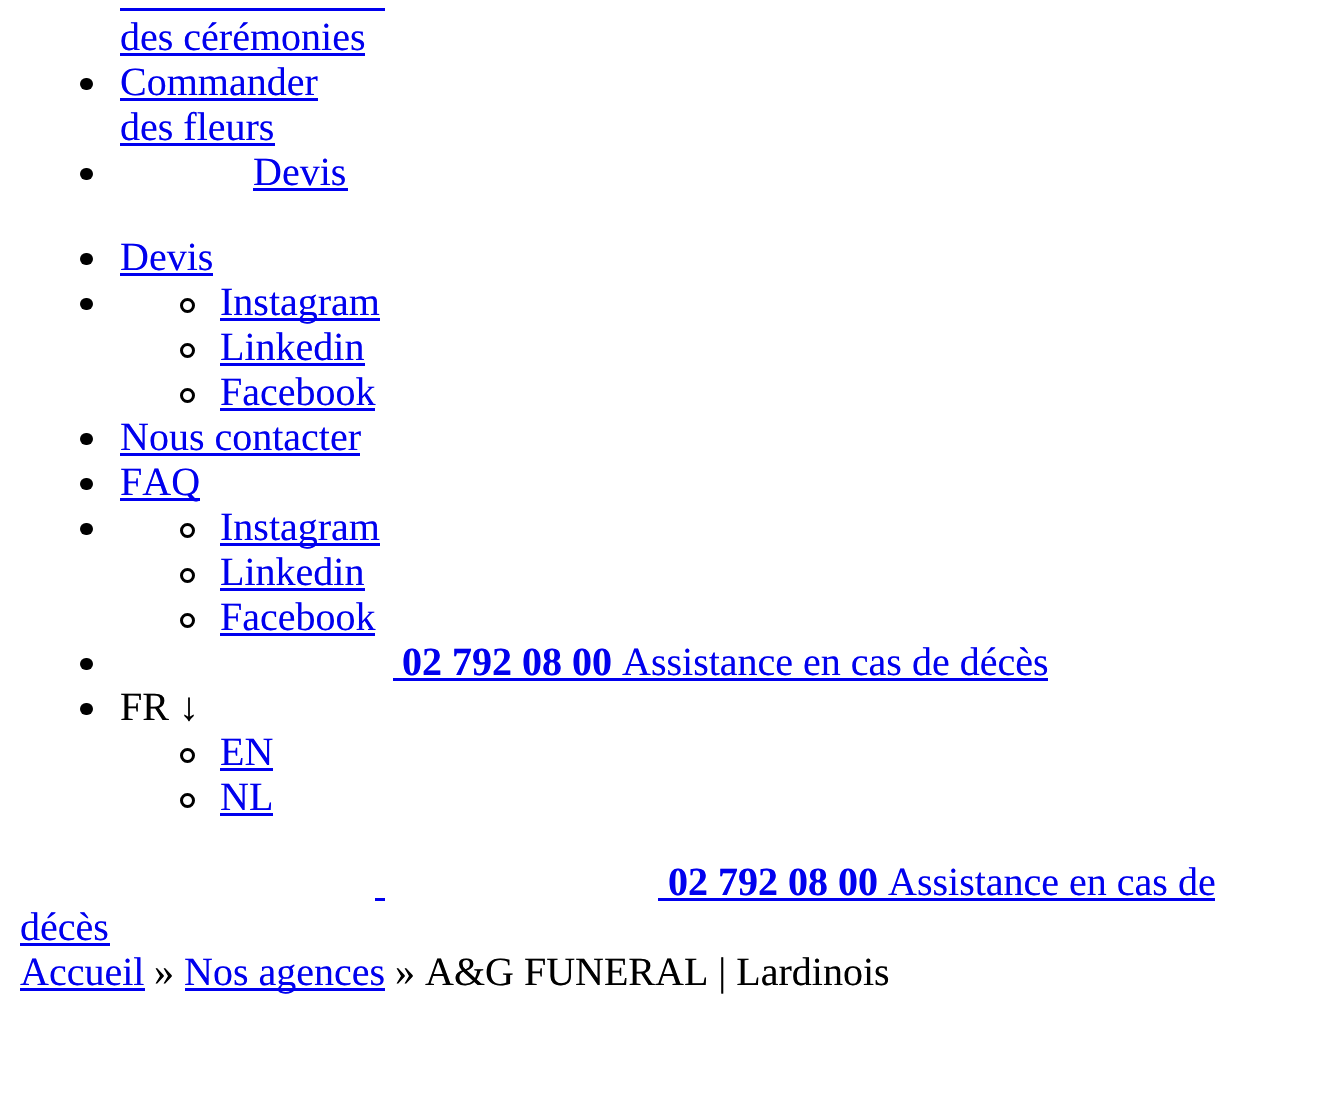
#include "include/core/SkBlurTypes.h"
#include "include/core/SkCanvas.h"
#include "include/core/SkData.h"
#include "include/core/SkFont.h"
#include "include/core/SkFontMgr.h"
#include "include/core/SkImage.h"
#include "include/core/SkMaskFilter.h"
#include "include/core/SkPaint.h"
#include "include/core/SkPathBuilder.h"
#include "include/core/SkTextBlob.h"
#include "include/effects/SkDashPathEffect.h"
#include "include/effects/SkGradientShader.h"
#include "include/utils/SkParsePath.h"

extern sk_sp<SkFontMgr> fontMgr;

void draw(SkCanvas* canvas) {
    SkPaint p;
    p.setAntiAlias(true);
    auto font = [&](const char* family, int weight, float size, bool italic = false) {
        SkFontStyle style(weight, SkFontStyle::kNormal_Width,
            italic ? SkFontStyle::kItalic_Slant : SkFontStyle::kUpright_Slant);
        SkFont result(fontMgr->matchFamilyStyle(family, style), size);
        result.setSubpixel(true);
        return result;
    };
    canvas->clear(0xFFFFFFFF);
    auto font1 = font("Liberation Serif", 400, 40);
    p.setColor(0xFF0000EE);
    canvas->drawString("des cérémonies", 120, 50, font1, p);
    canvas->drawRect(SkRect::MakeLTRB(120, 8, 385, 11), p);
    canvas->drawRect(SkRect::MakeLTRB(120, 53, 365, 56), p);
    p.setColor(0xFF000000);
    canvas->drawRoundRect(SkRect::MakeLTRB(80, 78, 93, 90), 6, 6, p);
    p.setColor(0xFF0000EE);
    canvas->drawString("Commander", 120, 95, font1, p);
    canvas->drawRect(SkRect::MakeLTRB(120, 98, 318, 101), p);
    canvas->drawString("des fleurs", 120, 140, font1, p);
    canvas->drawRect(SkRect::MakeLTRB(120, 143, 275, 146), p);
    p.setColor(0xFF000000);
    canvas->drawRoundRect(SkRect::MakeLTRB(80, 168, 93, 180), 6, 6, p);
    p.setColor(0xFF0000EE);
    canvas->drawString("Devis", 253, 185, font1, p);
    canvas->drawRect(SkRect::MakeLTRB(253, 188, 348, 191), p);
    p.setColor(0xFF000000);
    canvas->drawRoundRect(SkRect::MakeLTRB(80, 253, 93, 265), 6, 6, p);
    p.setColor(0xFF0000EE);
    canvas->drawString("Devis", 120, 270, font1, p);
    canvas->drawRect(SkRect::MakeLTRB(120, 273, 213, 276), p);
    p.setColor(0xFF000000);
    canvas->drawRoundRect(SkRect::MakeLTRB(80, 298, 93, 310), 6, 6, p);
    p.setStyle(SkPaint::kStroke_Style);
    p.setStrokeWidth(3);
    canvas->drawCircle(187.5f, 305.5f, 6, p);
    p.setStyle(SkPaint::kFill_Style);
    p.setColor(0xFF0000EE);
    canvas->drawRect(SkRect::MakeLTRB(220, 318, 380, 321), p);
    canvas->drawString("Instagram", 220, 315, font1, p);
    p.setStyle(SkPaint::kStroke_Style);
    p.setColor(0xFF000000);
    canvas->drawCircle(187.5f, 350.5f, 6, p);
    p.setStyle(SkPaint::kFill_Style);
    p.setColor(0xFF0000EE);
    canvas->drawString("Linkedin", 220, 360, font1, p);
    canvas->drawRect(SkRect::MakeLTRB(220, 363, 365, 366), p);
    p.setStyle(SkPaint::kStroke_Style);
    p.setColor(0xFF000000);
    canvas->drawCircle(187.5f, 395.5f, 6, p);
    p.setStyle(SkPaint::kFill_Style);
    p.setColor(0xFF0000EE);
    canvas->drawString("Facebook", 220, 405, font1, p);
    canvas->drawRect(SkRect::MakeLTRB(220, 408, 375, 411), p);
    p.setColor(0xFF000000);
    canvas->drawRoundRect(SkRect::MakeLTRB(80, 433, 93, 445), 6, 6, p);
    p.setColor(0xFF0000EE);
    canvas->drawString("Nous contacter", 120, 450, font1, p);
    canvas->drawRect(SkRect::MakeLTRB(120, 453, 360, 456), p);
    p.setColor(0xFF000000);
    canvas->drawRoundRect(SkRect::MakeLTRB(80, 478, 93, 490), 6, 6, p);
    p.setColor(0xFF0000EE);
    canvas->drawRect(SkRect::MakeLTRB(120, 498, 200, 501), p);
    canvas->drawString("FAQ", 120, 495, font1, p);
    p.setColor(0xFF000000);
    canvas->drawRoundRect(SkRect::MakeLTRB(80, 523, 93, 535), 6, 6, p);
    p.setStyle(SkPaint::kStroke_Style);
    canvas->drawCircle(187.5f, 530.5f, 6, p);
    p.setStyle(SkPaint::kFill_Style);
    p.setColor(0xFF0000EE);
    canvas->drawRect(SkRect::MakeLTRB(220, 543, 380, 546), p);
    canvas->drawString("Instagram", 220, 540, font1, p);
    p.setStyle(SkPaint::kStroke_Style);
    p.setColor(0xFF000000);
    canvas->drawCircle(187.5f, 575.5f, 6, p);
    p.setStyle(SkPaint::kFill_Style);
    p.setColor(0xFF0000EE);
    canvas->drawString("Linkedin", 220, 585, font1, p);
    canvas->drawRect(SkRect::MakeLTRB(220, 588, 365, 591), p);
    p.setStyle(SkPaint::kStroke_Style);
    p.setColor(0xFF000000);
    canvas->drawCircle(187.5f, 620.5f, 6, p);
    p.setStyle(SkPaint::kFill_Style);
    p.setColor(0xFF0000EE);
    canvas->drawString("Facebook", 220, 630, font1, p);
    canvas->drawRect(SkRect::MakeLTRB(220, 633, 375, 636), p);
    p.setColor(0xFF000000);
    canvas->drawRoundRect(SkRect::MakeLTRB(80, 658, 93, 670), 6, 6, p);
    auto font2 = font("Liberation Serif", 700, 40);
    p.setColor(0xFF0000EE);
    canvas->drawString("02 792 08 00", 402, 675, font2, p);
    canvas->drawRect(SkRect::MakeLTRB(393, 678, 1048, 681), p);
    canvas->drawString("Assistance en cas de décès", 622, 675, font1, p);
    p.setColor(0xFF000000);
    canvas->drawRoundRect(SkRect::MakeLTRB(80, 703, 93, 715), 6, 6, p);
    canvas->drawString("FR ↓", 120, 720, font1, p);
    p.setStyle(SkPaint::kStroke_Style);
    canvas->drawCircle(187.5f, 755.5f, 6, p);
    p.setStyle(SkPaint::kFill_Style);
    p.setColor(0xFF0000EE);
    canvas->drawString("EN", 220, 765, font1, p);
    canvas->drawRect(SkRect::MakeLTRB(220, 768, 273, 771), p);
    p.setStyle(SkPaint::kStroke_Style);
    p.setColor(0xFF000000);
    canvas->drawCircle(187.5f, 800.5f, 6, p);
    p.setStyle(SkPaint::kFill_Style);
    p.setColor(0xFF0000EE);
    canvas->drawString("NL", 220, 810, font1, p);
    canvas->drawRect(SkRect::MakeLTRB(220, 813, 273, 816), p);
    canvas->drawString("02 792 08 00", 668, 895, font2, p);
    canvas->drawRect(SkRect::MakeLTRB(658, 898, 1215, 901), p);
    canvas->drawString("Assistance en cas de", 888, 895, font1, p);
    canvas->drawRect(SkRect::MakeLTRB(375, 898, 385, 901), p);
    canvas->drawString("décès", 20, 940, font1, p);
    canvas->drawRect(SkRect::MakeLTRB(20, 943, 110, 946), p);
    canvas->drawString("Accueil", 20, 985, font1, p);
    canvas->drawRect(SkRect::MakeLTRB(20, 988, 145, 991), p);
    p.setColor(0xFF000000);
    canvas->drawString("»", 154, 985, font1, p);
    p.setColor(0xFF0000EE);
    canvas->drawRect(SkRect::MakeLTRB(185, 988, 385, 991), p);
    canvas->drawString("Nos agences", 184, 985, font1, p);
    p.setColor(0xFF000000);
    canvas->drawString("» A&G FUNERAL | Lardinois", 395, 985, font1, p);
}
